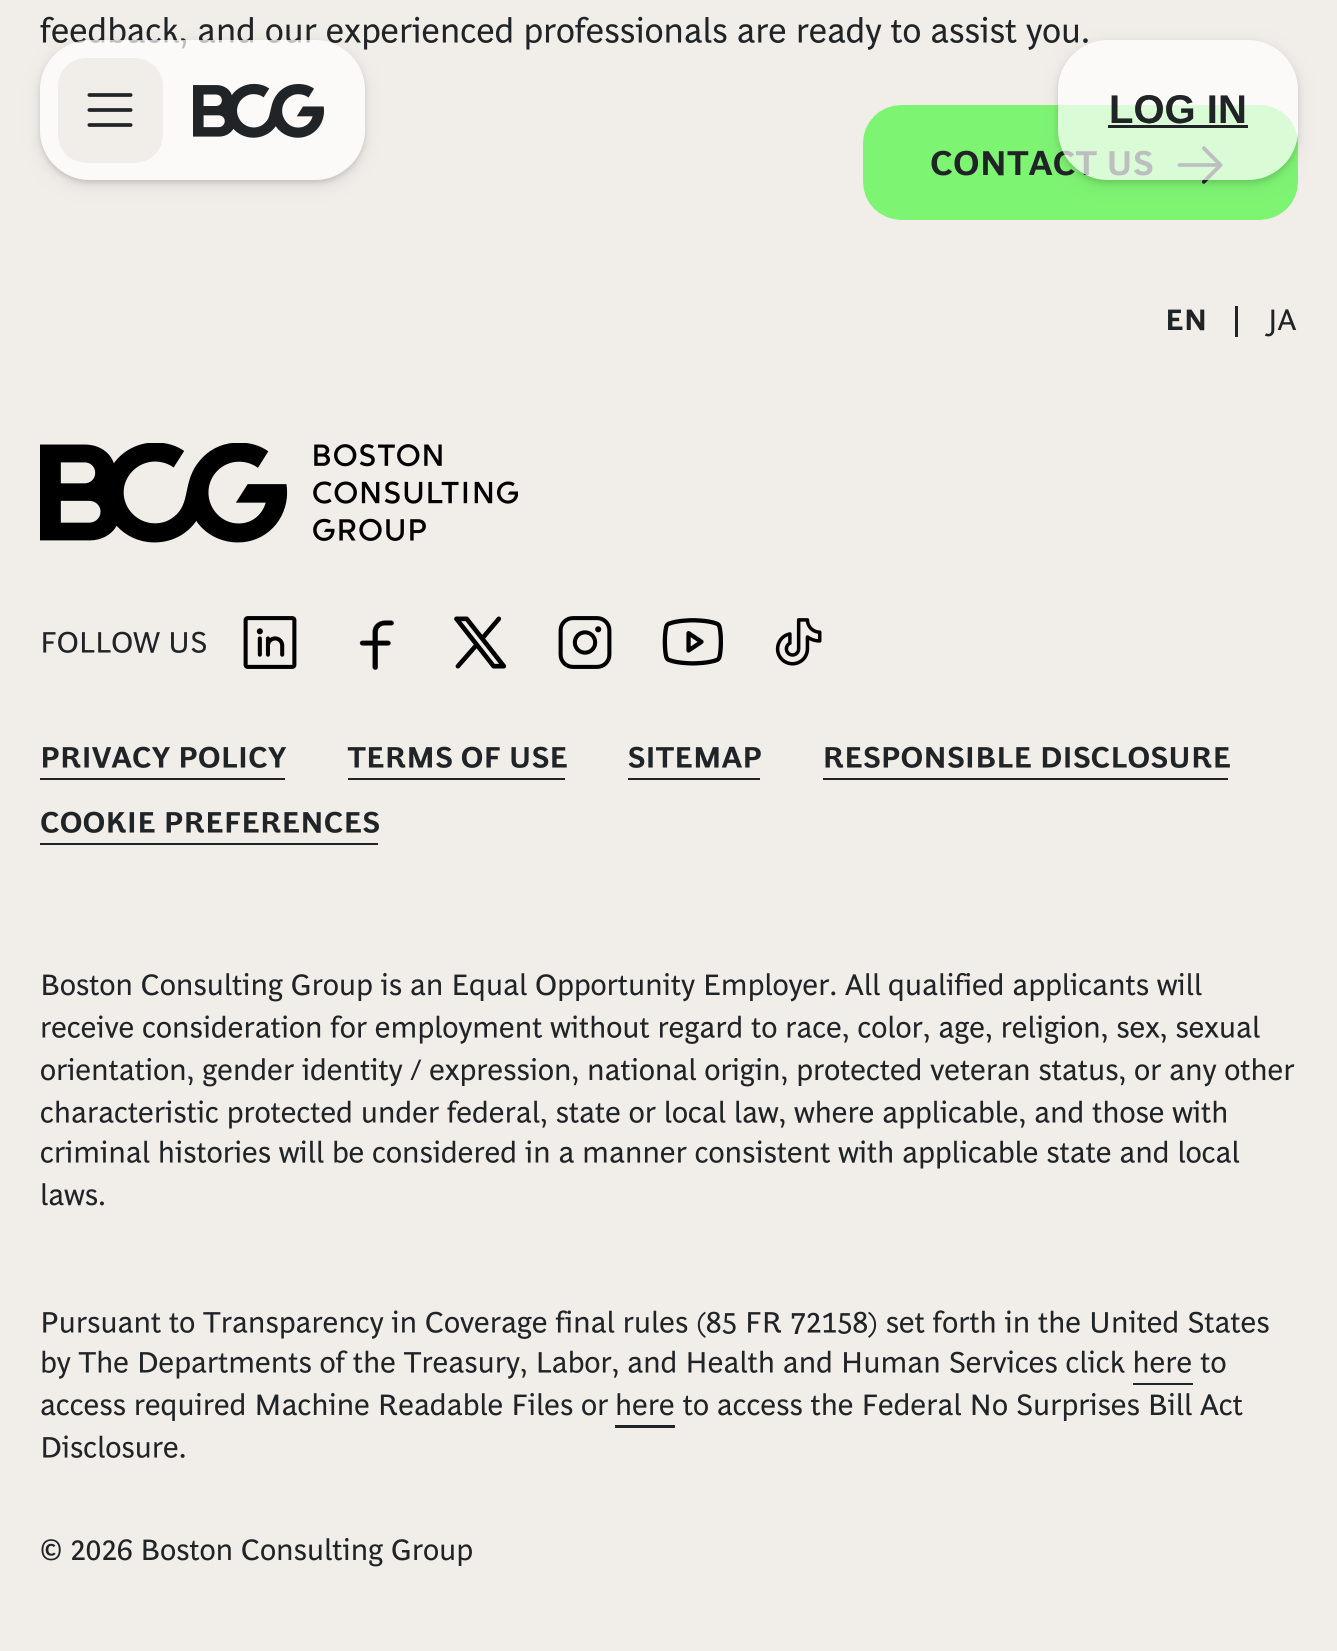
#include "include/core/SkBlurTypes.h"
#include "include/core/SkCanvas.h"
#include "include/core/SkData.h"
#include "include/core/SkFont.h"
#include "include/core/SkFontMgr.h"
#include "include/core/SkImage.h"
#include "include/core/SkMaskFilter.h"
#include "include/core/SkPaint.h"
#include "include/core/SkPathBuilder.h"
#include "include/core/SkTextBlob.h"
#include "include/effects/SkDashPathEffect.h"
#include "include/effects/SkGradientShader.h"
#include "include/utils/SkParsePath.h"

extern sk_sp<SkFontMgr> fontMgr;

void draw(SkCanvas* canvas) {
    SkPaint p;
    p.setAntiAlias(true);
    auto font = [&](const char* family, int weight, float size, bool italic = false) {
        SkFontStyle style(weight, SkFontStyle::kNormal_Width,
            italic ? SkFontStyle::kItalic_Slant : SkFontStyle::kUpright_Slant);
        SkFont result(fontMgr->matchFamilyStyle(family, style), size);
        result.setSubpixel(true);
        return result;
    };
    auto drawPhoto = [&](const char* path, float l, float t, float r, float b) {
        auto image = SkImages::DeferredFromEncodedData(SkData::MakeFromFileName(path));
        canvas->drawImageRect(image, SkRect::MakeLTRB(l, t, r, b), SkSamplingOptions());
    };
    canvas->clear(0xFFF1EEEA);
    drawPhoto("media/1.png", 40, 16, 1088, 50);
    p.setColor(0xFF7EF473);
    canvas->drawRoundRect(SkRect::MakeLTRB(863, 105, 1298, 220), 38, 38, p);
    drawPhoto("media/2.png", 931, 150, 1153, 176);
    drawPhoto("media/3.png", 1177, 146, 1223, 184);
    drawPhoto("media/4.png", 1168, 309, 1205, 331);
    p.setColor(0xFF212427);
    canvas->drawRect(SkRect::MakeLTRB(1235, 306, 1238, 337), p);
    drawPhoto("media/5.png", 1265, 309, 1297, 337);
    drawPhoto("media/6.png", 40, 443, 518, 543);
    drawPhoto("media/7.png", 43, 631, 206, 653);
    drawPhoto("media/8.png", 243, 616, 297, 669);
    drawPhoto("media/9.png", 359, 620, 394, 670);
    drawPhoto("media/10.png", 454, 616, 507, 669);
    drawPhoto("media/11.png", 558, 616, 612, 669);
    drawPhoto("media/12.png", 662, 618, 724, 666);
    drawPhoto("media/13.png", 775, 618, 822, 666);
    drawPhoto("media/14.png", 43, 746, 287, 768);
    canvas->drawRect(SkRect::MakeLTRB(40, 778, 285, 780), p);
    drawPhoto("media/15.png", 347, 746, 567, 768);
    canvas->drawRect(SkRect::MakeLTRB(348, 778, 565, 780), p);
    drawPhoto("media/16.png", 628, 746, 761, 768);
    canvas->drawRect(SkRect::MakeLTRB(628, 778, 760, 780), p);
    drawPhoto("media/17.png", 825, 746, 1230, 768);
    canvas->drawRect(SkRect::MakeLTRB(823, 778, 1228, 780), p);
    drawPhoto("media/18.png", 41, 811, 379, 833);
    canvas->drawRect(SkRect::MakeLTRB(40, 843, 378, 845), p);
    drawPhoto("media/19.png", 43, 972, 1202, 1002);
    drawPhoto("media/20.png", 42, 1015, 1260, 1044);
    drawPhoto("media/21.png", 41, 1057, 1295, 1087);
    drawPhoto("media/22.png", 41, 1100, 1226, 1129);
    drawPhoto("media/23.png", 41, 1140, 1240, 1169);
    drawPhoto("media/24.png", 42, 1183, 104, 1206);
    drawPhoto("media/25.png", 43, 1310, 1269, 1339);
    drawPhoto("media/26.png", 42, 1350, 1125, 1379);
    drawPhoto("media/27.png", 1135, 1350, 1191, 1373);
    drawPhoto("media/28.png", 1200, 1353, 1226, 1373);
    canvas->drawRect(SkRect::MakeLTRB(1133, 1383, 1193, 1385), p);
    drawPhoto("media/29.png", 41, 1392, 609, 1421);
    drawPhoto("media/30.png", 617, 1393, 674, 1416);
    drawPhoto("media/31.png", 683, 1392, 1243, 1421);
    canvas->drawRect(SkRect::MakeLTRB(615, 1425, 675, 1428), p);
    drawPhoto("media/32.png", 43, 1435, 185, 1458);
    drawPhoto("media/33.png", 41, 1537, 472, 1567);
    canvas->save();
    canvas->clipPath(SkPathBuilder(SkPathFillType::kEvenOdd).moveTo(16, 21).lineTo(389, 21).lineTo(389, 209).lineTo(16, 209).close().moveTo(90, 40).lineTo(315, 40).cubicTo(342.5f, 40, 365, 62.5f, 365, 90).lineTo(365, 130).cubicTo(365, 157.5f, 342.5f, 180, 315, 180).lineTo(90, 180).cubicTo(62.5f, 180, 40, 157.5f, 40, 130).lineTo(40, 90).cubicTo(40, 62.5f, 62.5f, 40, 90, 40).close().detach(), true);
    p.setColor(0x14000000);
    p.setMaskFilter(SkMaskFilter::MakeBlur(kNormal_SkBlurStyle, 7.5f));
    canvas->drawRoundRect(SkRect::MakeLTRB(40, 45, 365, 185), 50, 50, p);
    p.setMaskFilter(nullptr);
    canvas->restore();
    canvas->save();
    canvas->clipPath(SkPathBuilder(SkPathFillType::kEvenOdd).moveTo(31, 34).lineTo(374, 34).lineTo(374, 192).lineTo(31, 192).close().moveTo(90, 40).lineTo(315, 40).cubicTo(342.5f, 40, 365, 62.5f, 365, 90).lineTo(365, 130).cubicTo(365, 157.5f, 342.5f, 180, 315, 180).lineTo(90, 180).cubicTo(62.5f, 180, 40, 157.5f, 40, 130).lineTo(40, 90).cubicTo(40, 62.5f, 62.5f, 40, 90, 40).close().detach(), true);
    p.setColor(0x1F000000);
    p.setMaskFilter(SkMaskFilter::MakeBlur(kNormal_SkBlurStyle, 2.5f));
    canvas->drawRoundRect(SkRect::MakeLTRB(40, 43, 365, 183), 50, 50, p);
    p.setMaskFilter(nullptr);
    canvas->restore();
    p.setColor(0xB3FFFFFF);
    canvas->drawRoundRect(SkRect::MakeLTRB(40, 40, 365, 180), 50, 50, p);
    p.setColor(0xFFF1EEEA);
    canvas->drawRoundRect(SkRect::MakeLTRB(58, 58, 163, 163), 28, 28, p);
    drawPhoto("media/34.png", 87, 93, 133, 127);
    drawPhoto("media/35.png", 193, 83, 324, 138);
    canvas->save();
    canvas->clipPath(SkPathBuilder(SkPathFillType::kEvenOdd).moveTo(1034, 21).lineTo(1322, 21).lineTo(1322, 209).lineTo(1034, 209).close().moveTo(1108, 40).lineTo(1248, 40).cubicTo(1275.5f, 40, 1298, 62.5f, 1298, 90).lineTo(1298, 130).cubicTo(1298, 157.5f, 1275.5f, 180, 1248, 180).lineTo(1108, 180).cubicTo(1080.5f, 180, 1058, 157.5f, 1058, 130).lineTo(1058, 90).cubicTo(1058, 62.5f, 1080.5f, 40, 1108, 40).close().detach(), true);
    p.setColor(0x14000000);
    p.setMaskFilter(SkMaskFilter::MakeBlur(kNormal_SkBlurStyle, 7.5f));
    canvas->drawRoundRect(SkRect::MakeLTRB(1058, 45, 1298, 185), 50, 50, p);
    p.setMaskFilter(nullptr);
    canvas->restore();
    canvas->save();
    canvas->clipPath(SkPathBuilder(SkPathFillType::kEvenOdd).moveTo(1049, 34).lineTo(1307, 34).lineTo(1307, 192).lineTo(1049, 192).close().moveTo(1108, 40).lineTo(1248, 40).cubicTo(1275.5f, 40, 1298, 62.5f, 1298, 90).lineTo(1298, 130).cubicTo(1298, 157.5f, 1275.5f, 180, 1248, 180).lineTo(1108, 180).cubicTo(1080.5f, 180, 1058, 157.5f, 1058, 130).lineTo(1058, 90).cubicTo(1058, 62.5f, 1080.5f, 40, 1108, 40).close().detach(), true);
    p.setColor(0x1F000000);
    p.setMaskFilter(SkMaskFilter::MakeBlur(kNormal_SkBlurStyle, 2.5f));
    canvas->drawRoundRect(SkRect::MakeLTRB(1058, 43, 1298, 183), 50, 50, p);
    p.setMaskFilter(nullptr);
    canvas->restore();
    p.setColor(0xB3FFFFFF);
    canvas->drawRoundRect(SkRect::MakeLTRB(1058, 40, 1298, 180), 50, 50, p);
    auto font1 = font("Liberation Sans", 700, 40);
    p.setColor(0xFF212427);
    canvas->drawString("LOG IN", 1109, 123, font1, p);
    canvas->drawRect(SkRect::MakeLTRB(1108, 125, 1248, 128), p);
}
